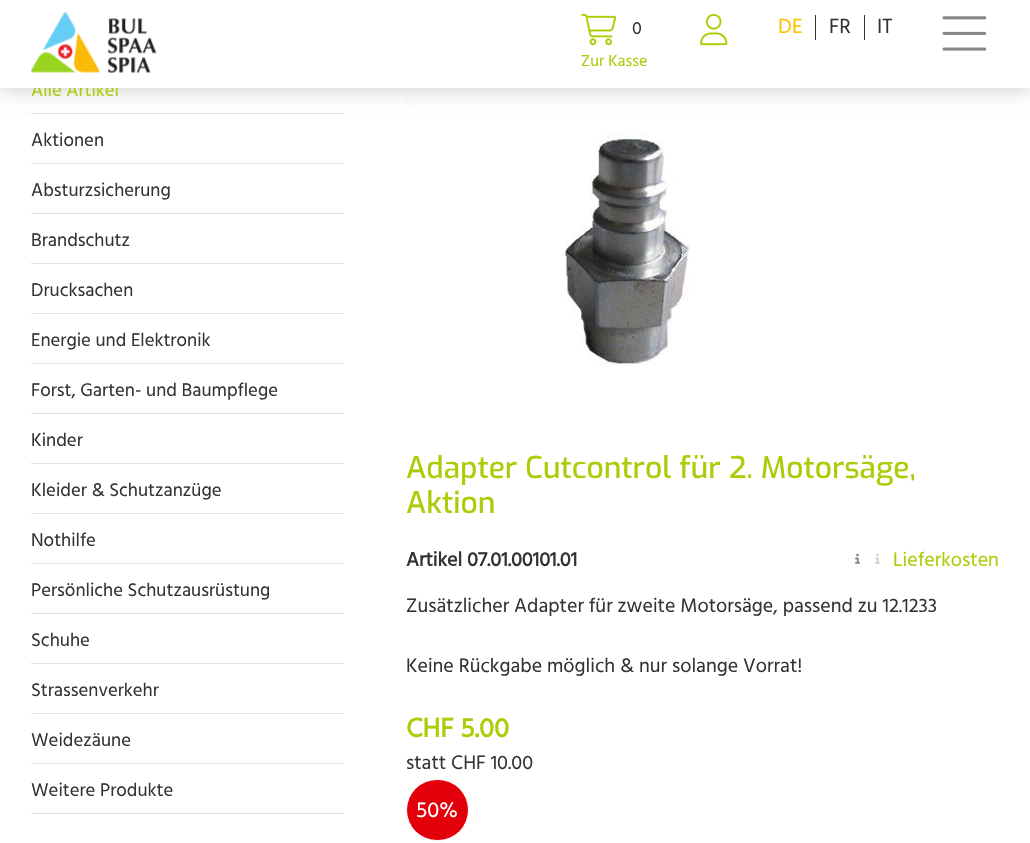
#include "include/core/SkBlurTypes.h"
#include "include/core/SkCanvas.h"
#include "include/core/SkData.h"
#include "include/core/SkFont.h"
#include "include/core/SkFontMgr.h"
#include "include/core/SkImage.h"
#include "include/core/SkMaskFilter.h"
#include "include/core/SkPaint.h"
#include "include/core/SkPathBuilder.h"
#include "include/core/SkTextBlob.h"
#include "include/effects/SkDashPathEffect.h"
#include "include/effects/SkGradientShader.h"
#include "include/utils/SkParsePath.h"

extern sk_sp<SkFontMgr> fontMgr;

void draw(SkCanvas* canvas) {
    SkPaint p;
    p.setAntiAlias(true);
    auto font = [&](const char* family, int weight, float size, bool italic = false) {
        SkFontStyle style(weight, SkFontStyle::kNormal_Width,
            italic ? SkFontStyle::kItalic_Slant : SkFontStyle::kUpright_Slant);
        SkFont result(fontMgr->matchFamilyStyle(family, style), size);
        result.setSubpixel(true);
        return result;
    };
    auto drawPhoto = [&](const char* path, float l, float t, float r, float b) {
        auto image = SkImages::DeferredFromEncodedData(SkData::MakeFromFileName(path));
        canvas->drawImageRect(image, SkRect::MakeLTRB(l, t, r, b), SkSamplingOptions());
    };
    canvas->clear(0xFFFFFFFF);
    p.setColor(0xFFE0E0E0);
    canvas->drawRect(SkRect::MakeLTRB(31, 113, 344, 114), p);
    drawPhoto("media/5.png", 406, 100, 690, 366);
    p.setColor(0x33000000);
    p.setMaskFilter(SkMaskFilter::MakeBlur(kNormal_SkBlurStyle, 9.5f));
    canvas->drawRect(SkRect::MakeLTRB(-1, -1, 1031, 89), p);
    p.setMaskFilter(nullptr);
    auto font1 = font("Hind", 400, 18.75f);
    p.setColor(0xFFAFCB08);
    canvas->drawString("Alle Artikel", 31, 96, font1, p);
    p.setColor(0xFFFFFFFF);
    canvas->drawRect(SkRect::MakeLTRB(0, 0, 1030, 88), p);
    drawPhoto("media/1.png", 31, 12, 157, 73);
    drawPhoto("media/2.png", 581, 13, 617, 46);
    auto font2 = font("Hind", 400, 18);
    p.setColor(0xFF333333);
    canvas->drawString("0", 632, 34, font2, p);
    auto font3 = font("Hind", 400, 16.25f);
    p.setColor(0xFFAFCB08);
    canvas->drawString("Zur Kasse", 581, 66, font3, p);
    drawPhoto("media/3.png", 700, 13, 728, 46);
    p.setColor(0xFF333333);
    canvas->drawRect(SkRect::MakeLTRB(815, 15, 816, 40), p);
    auto font4 = font("Hind", 400, 21);
    p.setColor(0xFFFDC300);
    canvas->drawString("DE", 778, 33, font4, p);
    p.setColor(0xFF333333);
    canvas->drawRect(SkRect::MakeLTRB(864, 15, 865, 40), p);
    canvas->drawString("FR", 829, 33, font4, p);
    canvas->drawString("IT", 877, 33, font4, p);
    drawPhoto("media/4.png", 942, 16, 987, 51);
    p.setColor(0xFFE0E0E0);
    canvas->drawRect(SkRect::MakeLTRB(31, 163, 344, 164), p);
    p.setColor(0xFF333333);
    canvas->drawString("Aktionen", 31, 146, font1, p);
    p.setColor(0xFFE0E0E0);
    canvas->drawRect(SkRect::MakeLTRB(31, 213, 344, 214), p);
    p.setColor(0xFF333333);
    canvas->drawString("Absturzsicherung", 31, 196, font1, p);
    p.setColor(0xFFE0E0E0);
    canvas->drawRect(SkRect::MakeLTRB(31, 263, 344, 264), p);
    p.setColor(0xFF333333);
    canvas->drawString("Brandschutz", 31, 246, font1, p);
    p.setColor(0xFFE0E0E0);
    canvas->drawRect(SkRect::MakeLTRB(31, 313, 344, 314), p);
    p.setColor(0xFF333333);
    canvas->drawString("Drucksachen", 31, 296, font1, p);
    p.setColor(0xFFE0E0E0);
    canvas->drawRect(SkRect::MakeLTRB(31, 363, 344, 364), p);
    p.setColor(0xFF333333);
    canvas->drawString("Energie und Elektronik", 31, 346, font1, p);
    p.setColor(0xFFE0E0E0);
    canvas->drawRect(SkRect::MakeLTRB(31, 413, 344, 414), p);
    p.setColor(0xFF333333);
    canvas->drawString("Forst, Garten- und Baumpflege", 31, 396, font1, p);
    p.setColor(0xFFE0E0E0);
    canvas->drawRect(SkRect::MakeLTRB(31, 463, 344, 464), p);
    p.setColor(0xFF333333);
    canvas->drawString("Kinder", 31, 446, font1, p);
    p.setColor(0xFFE0E0E0);
    canvas->drawRect(SkRect::MakeLTRB(31, 513, 344, 514), p);
    p.setColor(0xFF333333);
    canvas->drawString("Kleider & Schutzanzüge", 31, 496, font1, p);
    p.setColor(0xFFE0E0E0);
    canvas->drawRect(SkRect::MakeLTRB(31, 563, 344, 564), p);
    p.setColor(0xFF333333);
    canvas->drawString("Nothilfe", 31, 546, font1, p);
    p.setColor(0xFFE0E0E0);
    canvas->drawRect(SkRect::MakeLTRB(31, 613, 344, 614), p);
    p.setColor(0xFF333333);
    canvas->drawString("Persönliche Schutzausrüstung", 31, 596, font1, p);
    p.setColor(0xFFE0E0E0);
    canvas->drawRect(SkRect::MakeLTRB(31, 663, 344, 664), p);
    p.setColor(0xFF333333);
    canvas->drawString("Schuhe", 31, 646, font1, p);
    p.setColor(0xFFE0E0E0);
    canvas->drawRect(SkRect::MakeLTRB(31, 713, 344, 714), p);
    p.setColor(0xFF333333);
    canvas->drawString("Strassenverkehr", 31, 696, font1, p);
    p.setColor(0xFFE0E0E0);
    canvas->drawRect(SkRect::MakeLTRB(31, 763, 344, 764), p);
    p.setColor(0xFF333333);
    canvas->drawString("Weidezäune", 31, 746, font1, p);
    p.setColor(0xFFE0E0E0);
    canvas->drawRect(SkRect::MakeLTRB(31, 813, 344, 814), p);
    p.setColor(0xFF333333);
    canvas->drawString("Weitere Produkte", 31, 796, font1, p);
    auto font5 = font("Exo", 500, 30);
    p.setColor(0xFFAFCB08);
    canvas->drawString("Adapter Cutcontrol für 2. Motorsäge,", 406, 478, font5, p);
    canvas->drawString("Aktion", 406, 513, font5, p);
    auto font6 = font("Hind", 700, 20);
    p.setColor(0xFF333333);
    canvas->drawString("Artikel 07.01.00101.01", 406, 566, font6, p);
    drawPhoto("media/6.png", 855, 553, 860, 564);
    drawPhoto("media/7.png", 855, 553, 880, 564);
    auto font7 = font("Hind", 400, 20);
    p.setColor(0xFFAFCB08);
    canvas->drawString("Lieferkosten", 893, 566, font7, p);
    p.setColor(0xFF333333);
    canvas->drawString("Zusätzlicher Adapter für zweite Motorsäge, passend zu 12.1233", 406, 612, font7, p);
    canvas->drawString("Keine Rückgabe möglich & nur solange Vorrat!", 406, 672, font7, p);
    auto font8 = font("Hind", 700, 27.5f);
    p.setColor(0xFFAFCB08);
    canvas->drawString("CHF 5.00", 406, 737, font8, p);
    p.setColor(0xFF333333);
    canvas->drawString("statt CHF 10.00", 406, 769, font7, p);
    p.setColor(0xFFE3000B);
    canvas->drawRoundRect(SkRect::MakeLTRB(406.5f, 779.5f, 468.5f, 840.5f), 30.5f, 30.5f, p);
    p.setStyle(SkPaint::kStroke_Style);
    p.setStrokeWidth(1);
    p.setColor(0xFFFFFFFF);
    canvas->drawRoundRect(SkRect::MakeLTRB(406.5f, 779.5f, 468.5f, 840.5f), 30.5f, 30.5f, p);
    auto font9 = font("Hind", 400, 22);
    p.setStyle(SkPaint::kFill_Style);
    canvas->drawString("50%", 416, 817, font9, p);
}
